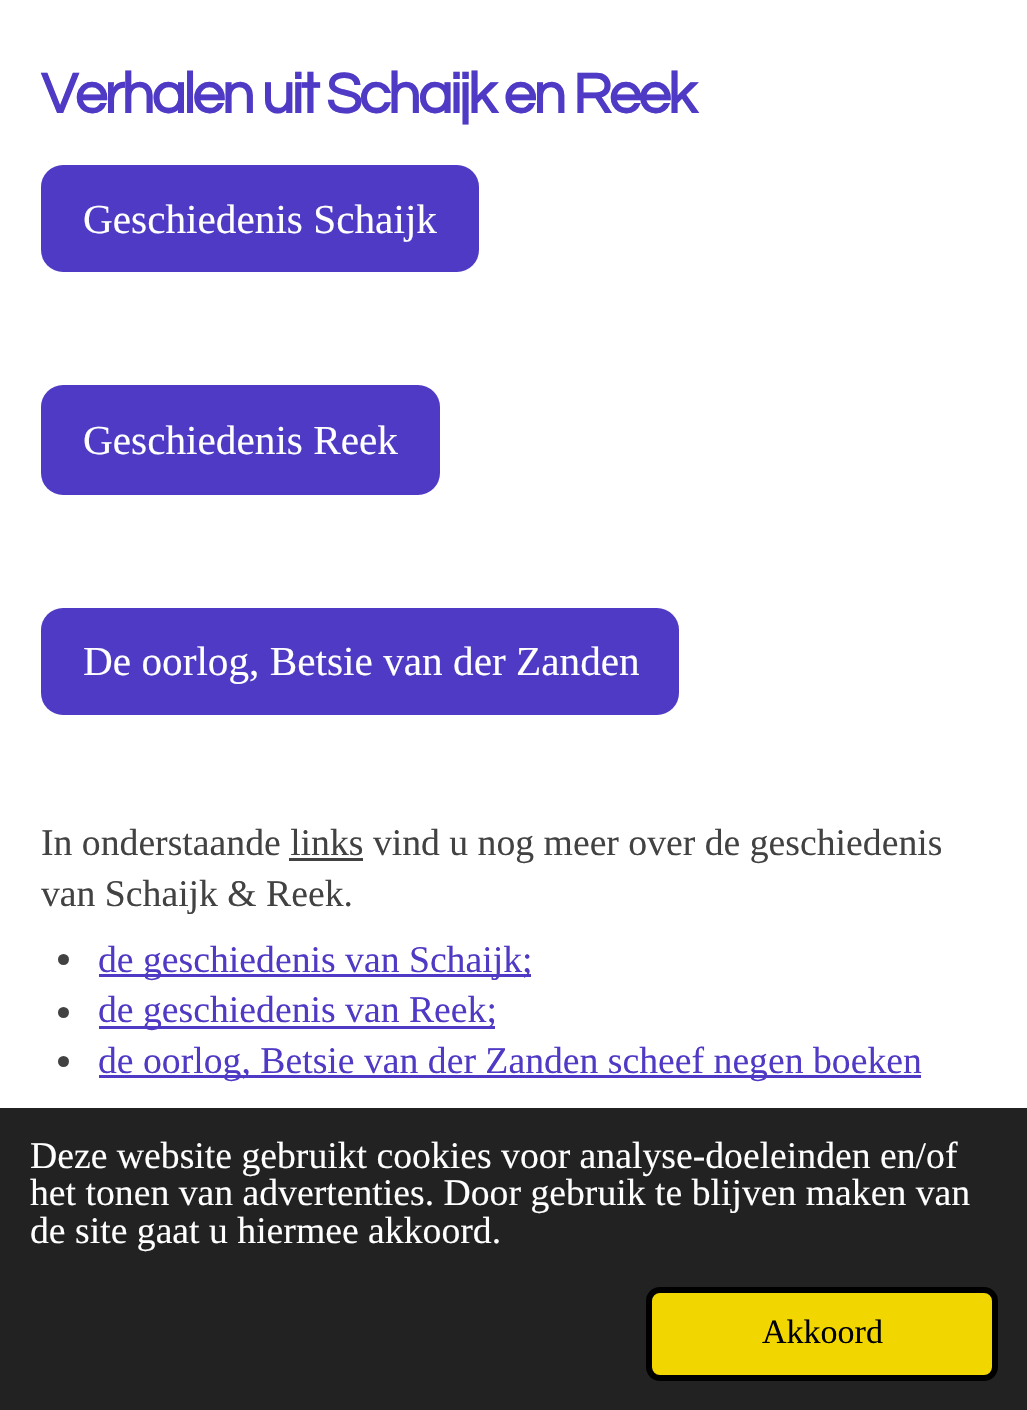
#include "include/core/SkBlurTypes.h"
#include "include/core/SkCanvas.h"
#include "include/core/SkData.h"
#include "include/core/SkFont.h"
#include "include/core/SkFontMgr.h"
#include "include/core/SkImage.h"
#include "include/core/SkMaskFilter.h"
#include "include/core/SkPaint.h"
#include "include/core/SkPathBuilder.h"
#include "include/core/SkTextBlob.h"
#include "include/effects/SkDashPathEffect.h"
#include "include/effects/SkGradientShader.h"
#include "include/utils/SkParsePath.h"

extern sk_sp<SkFontMgr> fontMgr;

void draw(SkCanvas* canvas) {
    SkPaint p;
    p.setAntiAlias(true);
    auto font = [&](const char* family, int weight, float size, bool italic = false) {
        SkFontStyle style(weight, SkFontStyle::kNormal_Width,
            italic ? SkFontStyle::kItalic_Slant : SkFontStyle::kUpright_Slant);
        SkFont result(fontMgr->matchFamilyStyle(family, style), size);
        result.setSubpixel(true);
        return result;
    };
    auto drawTracked = [&](const char* s, float x, float y, const SkFont& font, const SkPaint& ink, float letter, float word) {
        std::vector<SkGlyphID> glyphs(font.countText(s, strlen(s), SkTextEncoding::kUTF8));
        std::vector<float> xs(glyphs.size());
        font.textToGlyphs(s, strlen(s), SkTextEncoding::kUTF8, glyphs);
        font.getXPos(glyphs, xs, x);
        float extra = 0;
        for (size_t i = 0; i < glyphs.size(); i++) {
            xs[i] += extra;
            extra += letter + word * (glyphs[i] == font.unicharToGlyph(' '));
        }
        canvas->drawTextBlob(SkTextBlob::MakeFromPosHGlyphs(glyphs, xs, y, font), 0, 0, ink);
    };
    canvas->clear(0xFFFFFFFF);
    auto font1 = font("Questrial", 700, 58.25f);
    p.setColor(0xFF4E3AC4);
    drawTracked("Verhalen uit Schaijk en Reek", 41, 113, font1, p, -2.9f, 0);
    canvas->drawRoundRect(SkRect::MakeLTRB(41, 165, 479, 272), 22, 22, p);
    auto font2 = font("Liberation Serif", 400, 41.25f);
    p.setColor(0xFFFFFFFF);
    canvas->drawString("Geschiedenis Schaijk", 83, 233, font2, p);
    p.setColor(0xFF4E3AC4);
    canvas->drawRoundRect(SkRect::MakeLTRB(41, 385, 440, 495), 22, 22, p);
    p.setColor(0xFFFFFFFF);
    canvas->drawString("Geschiedenis Reek", 83, 454, font2, p);
    p.setColor(0xFF4E3AC4);
    canvas->drawRoundRect(SkRect::MakeLTRB(41, 608, 679, 715), 22, 22, p);
    p.setColor(0xFFFFFFFF);
    canvas->drawString("De oorlog, Betsie van der Zanden", 83, 675, font2, p);
    auto font3 = font("Liberation Serif", 400, 37.7f);
    p.setColor(0xFF424242);
    canvas->drawString("In onderstaande links vind u nog meer over de geschiedenis", 41, 855, font3, p);
    canvas->drawRect(SkRect::MakeLTRB(289, 858, 363, 861), p);
    canvas->drawString("van Schaijk & Reek.", 41, 906, font3, p);
    canvas->drawCircle(63.5f, 959.5f, 5.5f, p);
    p.setColor(0xFF4E3AC4);
    canvas->drawRect(SkRect::MakeLTRB(99, 974, 531, 977), p);
    canvas->drawString("de geschiedenis van Schaijk;", 98, 972, font3, p);
    p.setColor(0xFF424242);
    canvas->drawCircle(63.5f, 1012.5f, 5.5f, p);
    p.setColor(0xFF4E3AC4);
    canvas->drawRect(SkRect::MakeLTRB(99, 1026, 495, 1029), p);
    canvas->drawString("de geschiedenis van Reek;", 98, 1022, font3, p);
    p.setColor(0xFF424242);
    canvas->drawCircle(63.5f, 1061.5f, 5.5f, p);
    p.setColor(0xFF4E3AC4);
    canvas->drawRect(SkRect::MakeLTRB(99, 1075, 921, 1078), p);
    canvas->drawString("de oorlog, Betsie van der Zanden scheef negen boeken", 98, 1073, font3, p);
    p.setColor(0xFF222222);
    canvas->drawRect(SkRect::MakeLTRB(0, 1108, 1027, 1410), p);
    p.setColor(0xFFFFFFFF);
    {
        const struct { const char* s; float x, y; } items[] = {
            {"Deze website gebruikt cookies voor analyse-doeleinden en/of", 30, 1168},
            {"het tonen van advertenties. Door gebruik te blijven maken van", 30, 1205},
            {"de site gaat u hiermee akkoord.", 30, 1243},
        };
        for (auto [s, x, y] : items) {
            canvas->drawString(s, x, y, font3, p);
        }
    }
    p.setColor(0xFFF1D600);
    canvas->drawRoundRect(SkRect::MakeLTRB(649, 1290, 995, 1378), 11, 11, p);
    p.setStyle(SkPaint::kStroke_Style);
    p.setStrokeWidth(6);
    p.setColor(0xFF000000);
    canvas->drawRoundRect(SkRect::MakeLTRB(649, 1290, 995, 1378), 11, 11, p);
    auto font4 = font("Liberation Serif", 400, 34);
    p.setStyle(SkPaint::kFill_Style);
    canvas->drawString("Akkoord", 762, 1343, font4, p);
}
